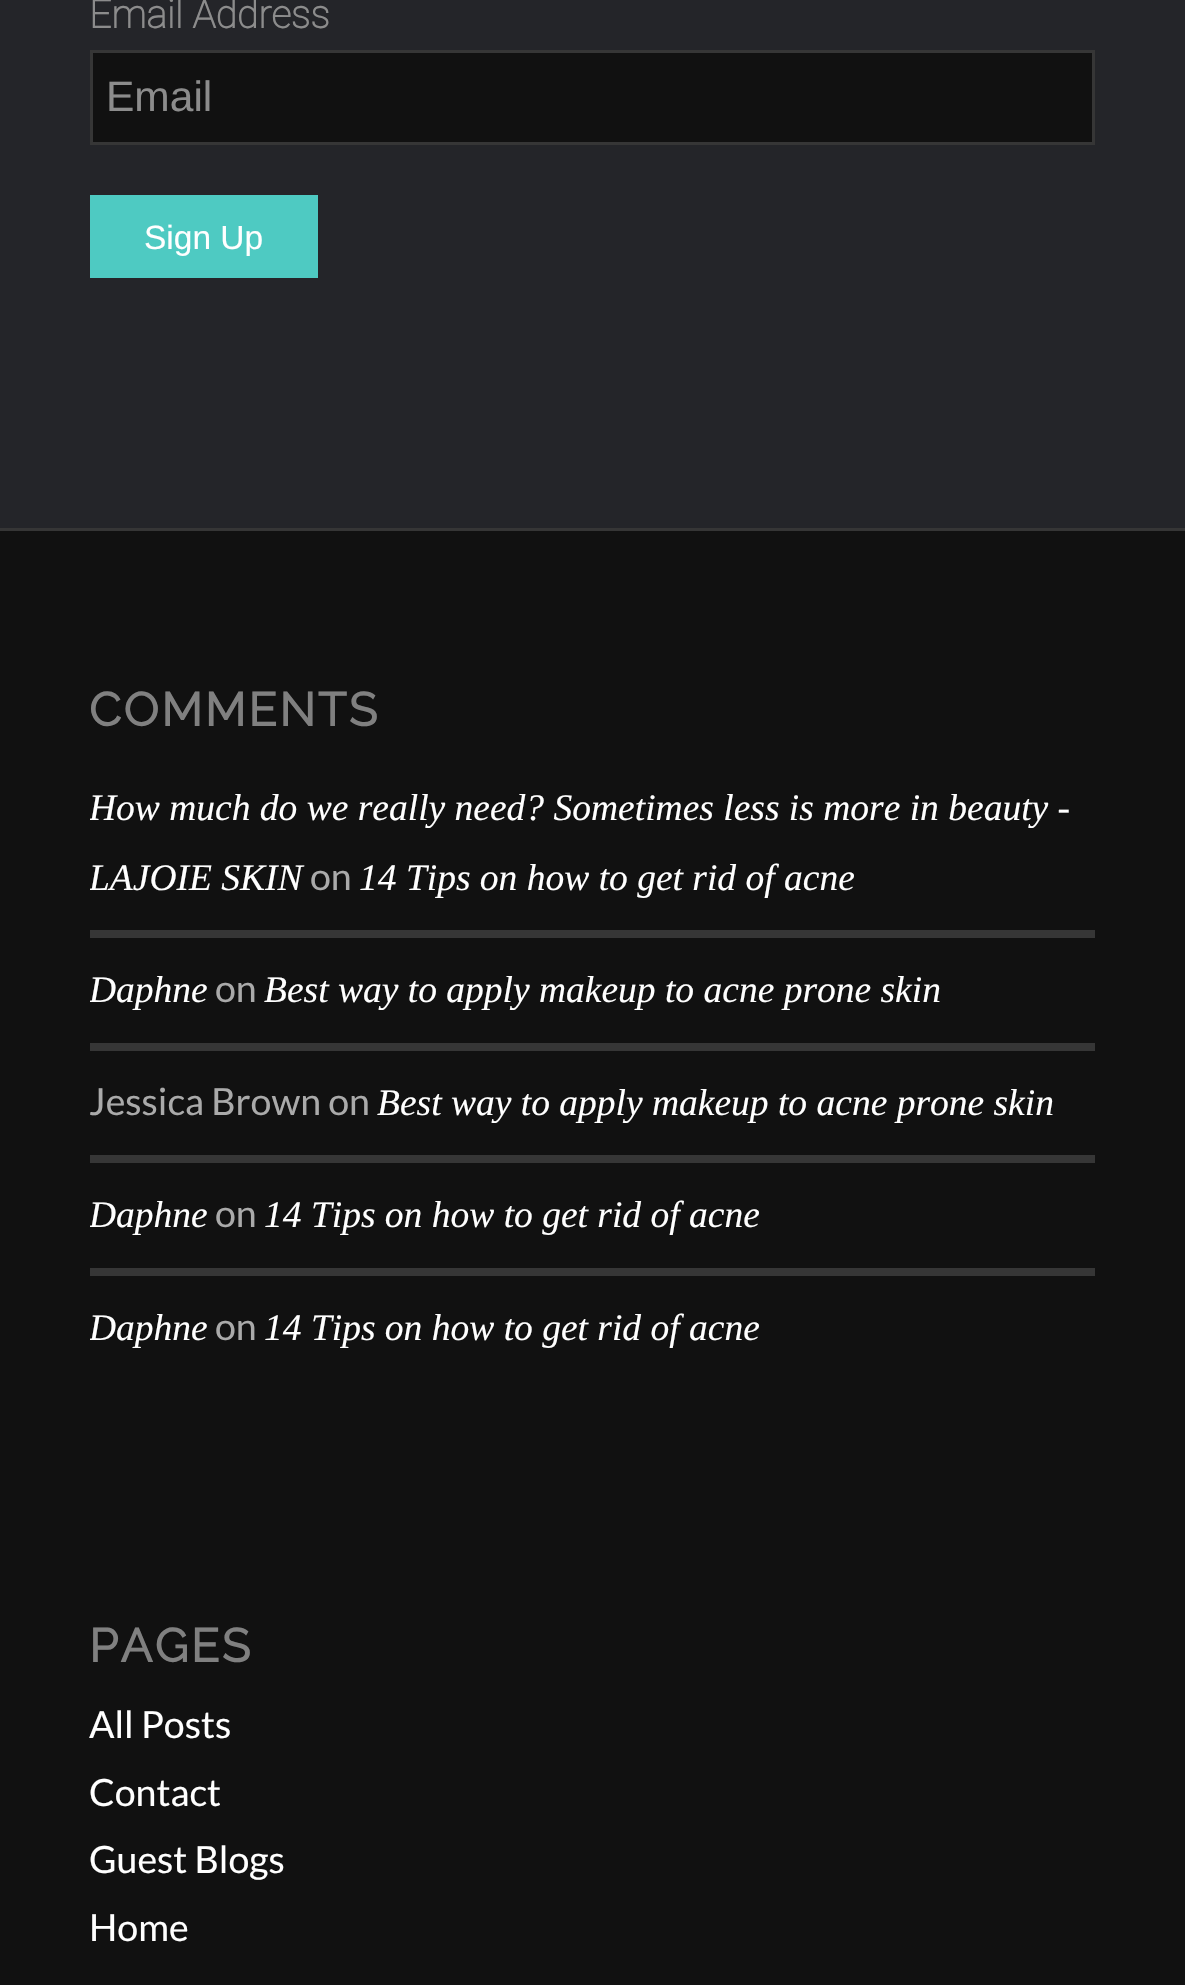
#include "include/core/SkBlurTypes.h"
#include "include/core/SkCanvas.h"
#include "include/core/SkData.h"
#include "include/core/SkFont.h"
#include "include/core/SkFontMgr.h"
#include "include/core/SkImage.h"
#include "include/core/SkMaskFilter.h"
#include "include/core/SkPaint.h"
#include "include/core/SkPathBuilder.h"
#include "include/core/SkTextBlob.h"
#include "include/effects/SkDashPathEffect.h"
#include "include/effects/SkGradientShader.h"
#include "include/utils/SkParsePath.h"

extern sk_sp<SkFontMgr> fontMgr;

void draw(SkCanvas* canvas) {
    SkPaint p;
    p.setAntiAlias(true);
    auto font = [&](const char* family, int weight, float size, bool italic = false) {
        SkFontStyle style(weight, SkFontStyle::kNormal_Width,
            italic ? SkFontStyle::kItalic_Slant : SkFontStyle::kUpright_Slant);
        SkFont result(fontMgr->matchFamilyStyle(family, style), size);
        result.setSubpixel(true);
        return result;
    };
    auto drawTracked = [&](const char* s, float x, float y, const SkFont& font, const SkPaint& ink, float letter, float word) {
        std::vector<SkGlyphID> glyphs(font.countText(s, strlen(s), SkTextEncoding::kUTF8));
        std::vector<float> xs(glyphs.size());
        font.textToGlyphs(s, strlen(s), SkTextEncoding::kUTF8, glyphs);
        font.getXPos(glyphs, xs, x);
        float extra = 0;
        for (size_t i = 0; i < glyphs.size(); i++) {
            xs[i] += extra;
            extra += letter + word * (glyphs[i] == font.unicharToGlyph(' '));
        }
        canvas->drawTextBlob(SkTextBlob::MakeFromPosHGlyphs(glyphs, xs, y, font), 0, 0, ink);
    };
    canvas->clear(0xFF242529);
    auto font1 = font("Roboto", 700, 39);
    p.setColor(0xFF8C8C8C);
    canvas->drawString("Email Address", 89, 28, font1, p);
    p.setColor(0xFF111111);
    canvas->drawRect(SkRect::MakeLTRB(91.5f, 51.5f, 1093.5f, 143.5f), p);
    p.setStyle(SkPaint::kStroke_Style);
    p.setStrokeWidth(3);
    p.setColor(0xFF363636);
    canvas->drawRect(SkRect::MakeLTRB(91.5f, 51.5f, 1093.5f, 143.5f), p);
    auto font2 = font("Liberation Sans", 400, 42.5f);
    p.setStyle(SkPaint::kFill_Style);
    p.setColor(0xFF8C8C8C);
    canvas->drawString("Email", 106, 111, font2, p);
    p.setColor(0xFF4ECAC2);
    canvas->drawRect(SkRect::MakeLTRB(90, 195, 318, 278), p);
    auto font3 = font("Liberation Sans", 400, 33.5f);
    p.setColor(0xFFFFFFFF);
    canvas->drawString("Sign Up", 144, 249, font3, p);
    p.setColor(0xFF111111);
    canvas->drawRect(SkRect::MakeLTRB(0, 531, 1185, 1985), p);
    p.setColor(0xFF363636);
    canvas->drawRect(SkRect::MakeLTRB(0, 528, 1185, 531), p);
    auto font4 = font("Raleway", 700, 46.75f);
    p.setColor(0xFF808080);
    drawTracked("COMMENTS", 89, 726, font4, p, 2.5f, 0);
    canvas->save();
    canvas->clipRect(SkRect::MakeLTRB(90, 643, 1095, 1380));
    auto font5 = font("Liberation Serif", 400, 37.5f, true);
    p.setColor(0xFFFFFFFF);
    canvas->drawString("How much do we really need? Sometimes less is more in beauty -", 89, 820, font5, p);
    canvas->drawString("LAJOIE SKIN", 89, 890, font5, p);
    canvas->restore();
    auto font6 = font("Lato", 400, 37.5f);
    p.setColor(0xFFAAAAAA);
    canvas->drawString("on", 310, 890, font6, p);
    p.setColor(0xFFFFFFFF);
    canvas->drawString("14 Tips on how to get rid of acne", 359, 890, font5, p);
    p.setColor(0xFF363636);
    canvas->drawRect(SkRect::MakeLTRB(90, 930, 1095, 938), p);
    canvas->save();
    canvas->clipRect(SkRect::MakeLTRB(90, 643, 1095, 1380));
    p.setColor(0xFFFFFFFF);
    canvas->drawString("Daphne", 89, 1002, font5, p);
    canvas->restore();
    p.setColor(0xFFAAAAAA);
    canvas->drawString("on", 215, 1002, font6, p);
    p.setColor(0xFFFFFFFF);
    canvas->drawString("Best way to apply makeup to acne prone skin", 264, 1002, font5, p);
    p.setColor(0xFF363636);
    canvas->drawRect(SkRect::MakeLTRB(90, 1043, 1095, 1051), p);
    p.setColor(0xFFAAAAAA);
    canvas->drawString("Jessica Brown on", 89, 1115, font6, p);
    p.setColor(0xFFFFFFFF);
    canvas->drawString("Best way to apply makeup to acne prone skin", 377, 1115, font5, p);
    p.setColor(0xFF363636);
    canvas->drawRect(SkRect::MakeLTRB(90, 1155, 1095, 1163), p);
    canvas->save();
    canvas->clipRect(SkRect::MakeLTRB(90, 643, 1095, 1380));
    p.setColor(0xFFFFFFFF);
    canvas->drawString("Daphne", 89, 1227, font5, p);
    canvas->restore();
    p.setColor(0xFFAAAAAA);
    canvas->drawString("on", 215, 1227, font6, p);
    p.setColor(0xFFFFFFFF);
    canvas->drawString("14 Tips on how to get rid of acne", 264, 1227, font5, p);
    p.setColor(0xFF363636);
    canvas->drawRect(SkRect::MakeLTRB(90, 1268, 1095, 1276), p);
    canvas->save();
    canvas->clipRect(SkRect::MakeLTRB(90, 643, 1095, 1380));
    p.setColor(0xFFFFFFFF);
    canvas->drawString("Daphne", 89, 1340, font5, p);
    canvas->restore();
    p.setColor(0xFFAAAAAA);
    canvas->drawString("on", 215, 1340, font6, p);
    p.setColor(0xFFFFFFFF);
    canvas->drawString("14 Tips on how to get rid of acne", 264, 1340, font5, p);
    p.setColor(0xFF808080);
    drawTracked("PAGES", 89, 1662, font4, p, 2.5f, 0);
    p.setColor(0xFFFFFFFF);
    {
        const struct { const char* s; float x, y; } items[] = {
            {"All Posts", 89, 1738},
            {"Contact", 89, 1806},
            {"Guest Blogs", 89, 1873},
            {"Home", 89, 1941},
        };
        for (auto [s, x, y] : items) {
            canvas->drawString(s, x, y, font6, p);
        }
    }
}
